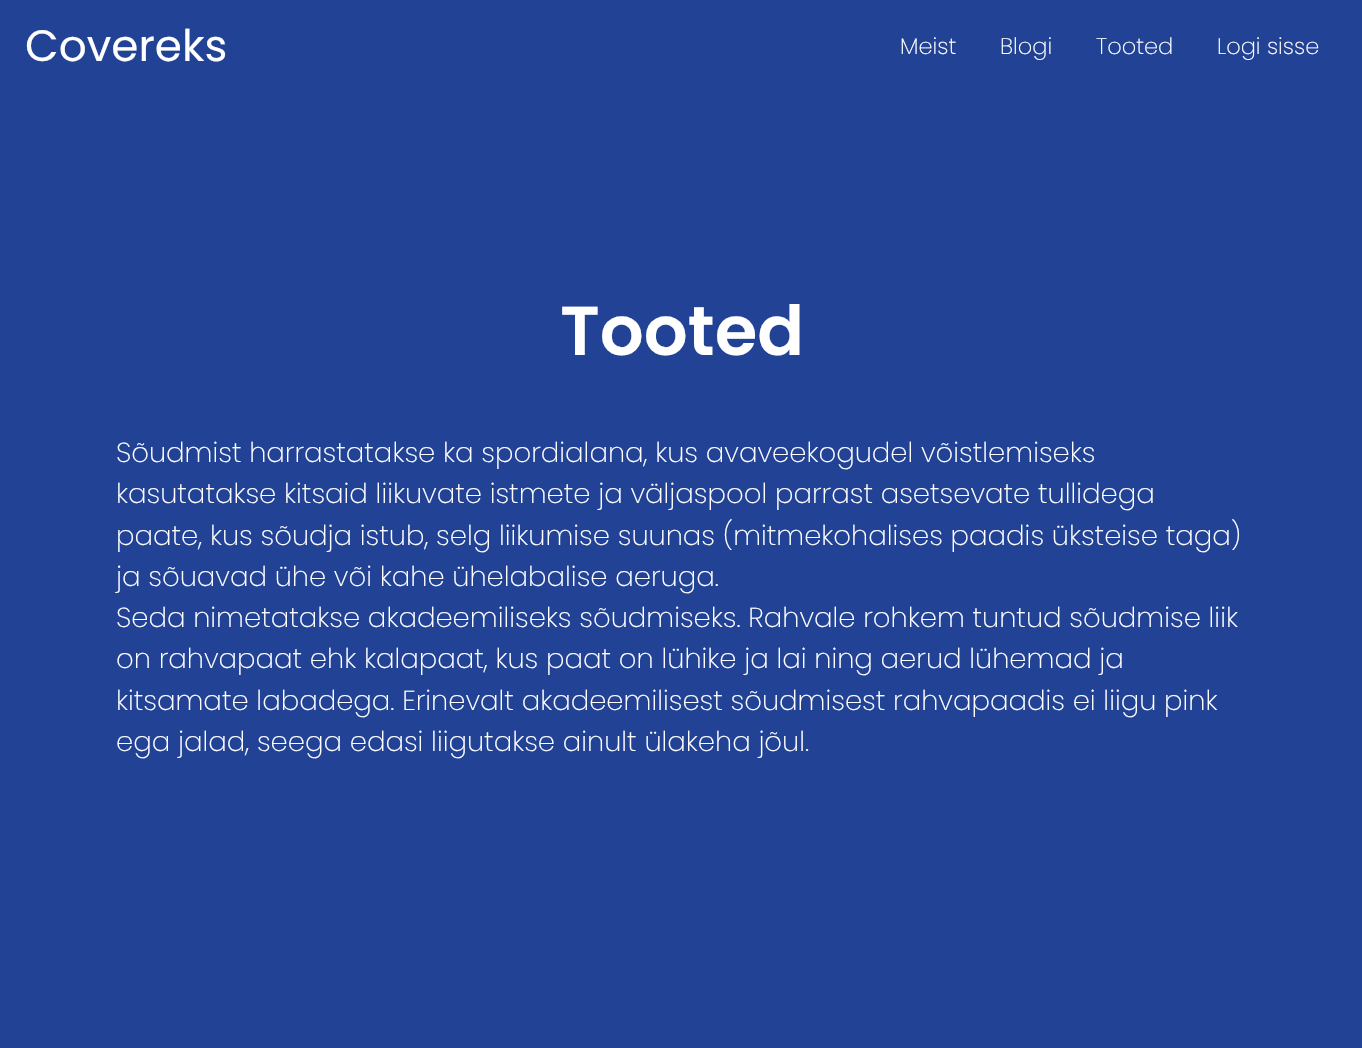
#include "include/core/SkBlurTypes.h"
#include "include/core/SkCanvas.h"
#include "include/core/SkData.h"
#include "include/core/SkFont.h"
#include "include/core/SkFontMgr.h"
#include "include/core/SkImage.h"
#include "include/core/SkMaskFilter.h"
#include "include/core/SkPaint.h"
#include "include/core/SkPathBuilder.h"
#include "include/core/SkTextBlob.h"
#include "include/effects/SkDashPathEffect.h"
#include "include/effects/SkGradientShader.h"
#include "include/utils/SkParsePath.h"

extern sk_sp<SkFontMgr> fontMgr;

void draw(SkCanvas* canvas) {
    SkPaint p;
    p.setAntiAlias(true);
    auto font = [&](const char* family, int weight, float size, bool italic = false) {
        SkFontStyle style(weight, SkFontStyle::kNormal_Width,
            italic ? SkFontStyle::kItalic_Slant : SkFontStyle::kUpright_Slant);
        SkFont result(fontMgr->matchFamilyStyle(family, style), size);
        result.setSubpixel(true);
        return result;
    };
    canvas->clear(0xFF224295);
    auto font1 = font("Poppins", 400, 43.75f);
    p.setColor(0xFFFFFFFF);
    canvas->drawString("Covereks", 25, 61, font1, p);
    auto font2 = font("Poppins", 200, 22.5f);
    {
        const struct { const char* s; float x, y; } items[] = {
            {"Meist", 900, 54},
            {"Blogi", 1000, 54},
            {"Tooted", 1096, 54},
            {"Logi sisse", 1217, 54},
        };
        for (auto [s, x, y] : items) {
            canvas->drawString(s, x, y, font2, p);
        }
    }
    auto font3 = font("Poppins", 600, 69);
    canvas->drawString("Tooted", 560, 355, font3, p);
    auto font4 = font("Poppins", 200, 27.5f);
    {
        const struct { const char* s; float x, y; } items[] = {
            {"Sõudmist harrastatakse ka spordialana, kus avaveekogudel võistlemiseks", 116, 462},
            {"kasutatakse kitsaid liikuvate istmete ja väljaspool parrast asetsevate tullidega", 116, 503},
            {"paate, kus sõudja istub, selg liikumise suunas (mitmekohalises paadis üksteise taga)", 116, 545},
            {"ja sõuavad ühe või kahe ühelabalise aeruga.", 116, 586},
            {"Seda nimetatakse akadeemiliseks sõudmiseks. Rahvale rohkem tuntud sõudmise liik", 116, 627},
            {"on rahvapaat ehk kalapaat, kus paat on lühike ja lai ning aerud lühemad ja", 116, 668},
            {"kitsamate labadega. Erinevalt akadeemilisest sõudmisest rahvapaadis ei liigu pink", 116, 710},
            {"ega jalad, seega edasi liigutakse ainult ülakeha jõul.", 116, 751},
        };
        for (auto [s, x, y] : items) {
            canvas->drawString(s, x, y, font4, p);
        }
    }
}
